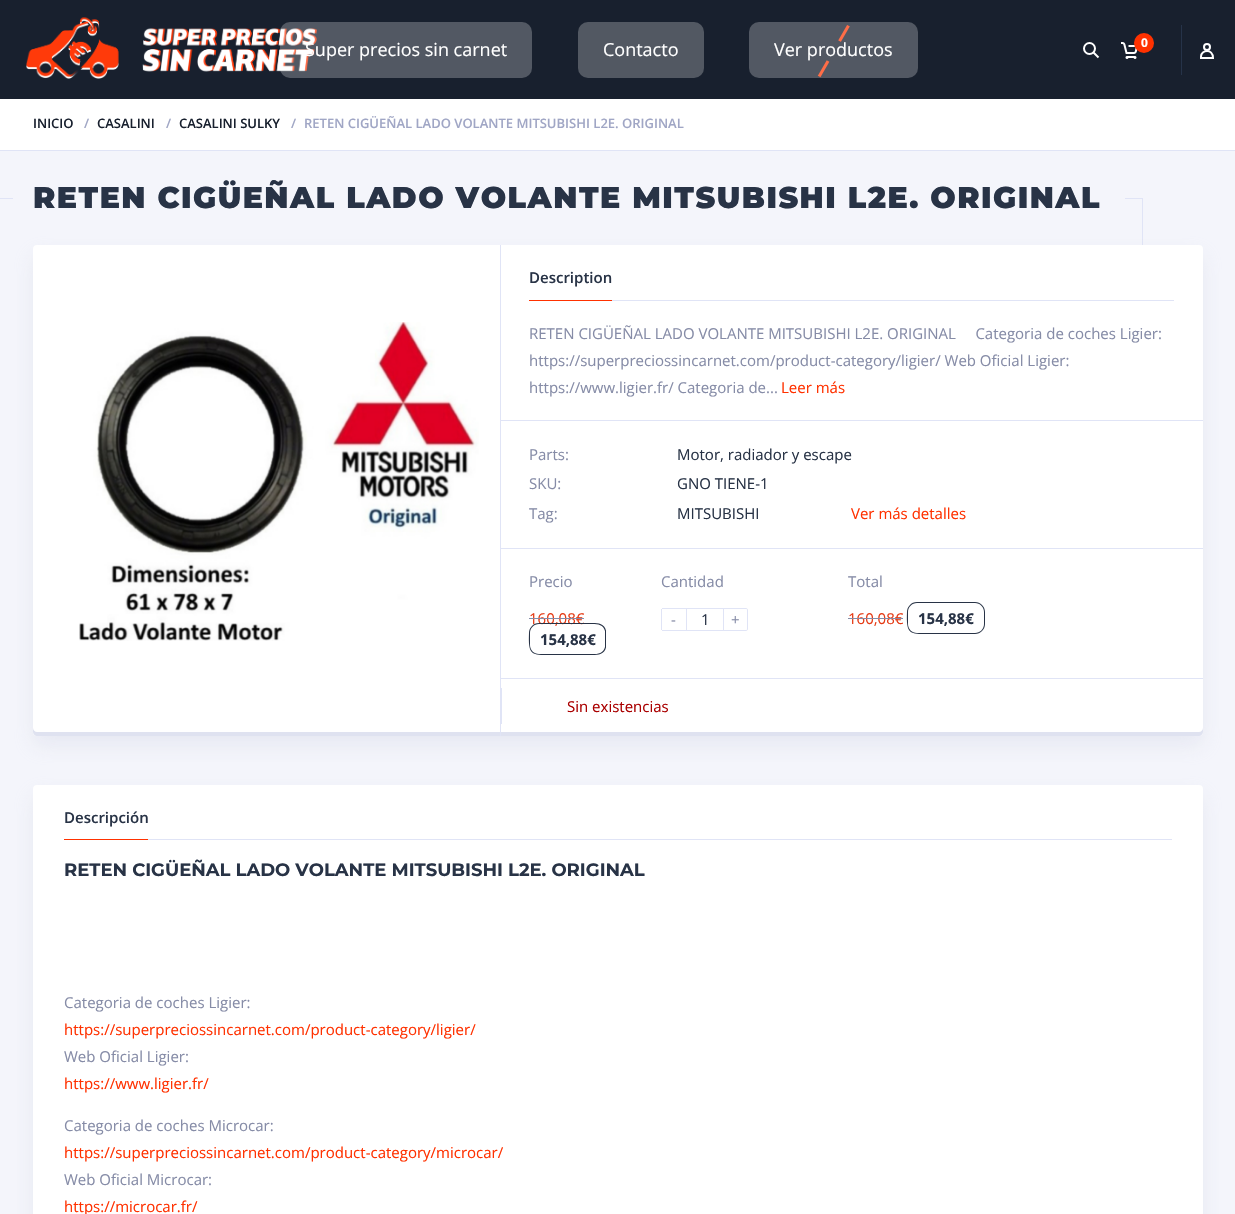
#include "include/core/SkBlurTypes.h"
#include "include/core/SkCanvas.h"
#include "include/core/SkData.h"
#include "include/core/SkFont.h"
#include "include/core/SkFontMgr.h"
#include "include/core/SkImage.h"
#include "include/core/SkMaskFilter.h"
#include "include/core/SkPaint.h"
#include "include/core/SkPathBuilder.h"
#include "include/core/SkTextBlob.h"
#include "include/effects/SkDashPathEffect.h"
#include "include/effects/SkGradientShader.h"
#include "include/utils/SkParsePath.h"

extern sk_sp<SkFontMgr> fontMgr;

void draw(SkCanvas* canvas) {
    SkPaint p;
    p.setAntiAlias(true);
    auto font = [&](const char* family, int weight, float size, bool italic = false) {
        SkFontStyle style(weight, SkFontStyle::kNormal_Width,
            italic ? SkFontStyle::kItalic_Slant : SkFontStyle::kUpright_Slant);
        SkFont result(fontMgr->matchFamilyStyle(family, style), size);
        result.setSubpixel(true);
        return result;
    };
    auto drawTracked = [&](const char* s, float x, float y, const SkFont& font, const SkPaint& ink, float letter, float word) {
        std::vector<SkGlyphID> glyphs(font.countText(s, strlen(s), SkTextEncoding::kUTF8));
        std::vector<float> xs(glyphs.size());
        font.textToGlyphs(s, strlen(s), SkTextEncoding::kUTF8, glyphs);
        font.getXPos(glyphs, xs, x);
        float extra = 0;
        for (size_t i = 0; i < glyphs.size(); i++) {
            xs[i] += extra;
            extra += letter + word * (glyphs[i] == font.unicharToGlyph(' '));
        }
        canvas->drawTextBlob(SkTextBlob::MakeFromPosHGlyphs(glyphs, xs, y, font), 0, 0, ink);
    };
    auto drawPhoto = [&](const char* path, float l, float t, float r, float b) {
        auto image = SkImages::DeferredFromEncodedData(SkData::MakeFromFileName(path));
        canvas->drawImageRect(image, SkRect::MakeLTRB(l, t, r, b), SkSamplingOptions());
    };
    canvas->clear(0xFFF4F5FB);
    p.setColor(0xFF18202E);
    canvas->drawRect(SkRect::MakeLTRB(0, 0, 1235, 99), p);
    drawPhoto("media/1.png", 26, 17, 317, 79);
    p.setColor(0x40FFFFFF);
    canvas->drawRoundRect(SkRect::MakeLTRB(280, 22, 532, 78), 10, 10, p);
    auto font1 = font("Open Sans", 400, 18);
    p.setColor(0xFFFFFFFF);
    canvas->drawString("Super precios sin carnet", 305, 56, font1, p);
    p.setColor(0xFF525862);
    canvas->drawRoundRect(SkRect::MakeLTRB(578, 22, 704, 78), 10, 10, p);
    p.setColor(0xFFFFFFFF);
    canvas->drawString("Contacto", 603, 56, font1, p);
    drawPhoto("media/2.png", 817, 25, 850, 78);
    p.setColor(0x40FFFFFF);
    canvas->drawRoundRect(SkRect::MakeLTRB(749, 22, 918, 78), 10, 10, p);
    p.setColor(0xFFFFFFFF);
    canvas->drawString("Ver productos", 774, 56, font1, p);
    p.setStyle(SkPaint::kStroke_Style);
    p.setStrokeWidth(2);
    canvas->drawPath(SkPathBuilder().moveTo(1093, 52).lineTo(1098.5f, 57.5f).detach(), p);
    canvas->drawCircle(1089.5f, 48.5f, 5.5f, p);
    drawPhoto("media/3.png", 1121, 42, 1138, 59);
    p.setStyle(SkPaint::kFill_Style);
    p.setColor(0xFFFF3100);
    canvas->drawCircle(1144, 43, 10, p);
    auto font2 = font("Open Sans", 700, 12);
    p.setColor(0xFFFFFFFF);
    canvas->drawString("0", 1141, 47, font2, p);
    p.setColor(0xFF263349);
    canvas->drawRect(SkRect::MakeLTRB(1181, 25, 1182, 75), p);
    p.setStyle(SkPaint::kStroke_Style);
    p.setColor(0xFFFFFFFF);
    canvas->drawPath(SkPathBuilder().moveTo(1201, 56.5f).cubicTo(1201, 50, 1213, 48, 1213, 58).lineTo(1201, 58).close().detach(), p);
    canvas->drawCircle(1207, 47, 3, p);
    p.setStyle(SkPaint::kFill_Style);
    canvas->drawRect(SkRect::MakeLTRB(0, 99, 1235, 150), p);
    p.setColor(0xFFE0E4F6);
    canvas->drawRect(SkRect::MakeLTRB(0, 150, 1235, 151), p);
    auto font3 = font("Open Sans", 600, 13);
    p.setColor(0xFF18202E);
    canvas->drawString("INICIO", 33, 128, font3, p);
    p.setColor(0xFFA0A6C5);
    canvas->drawString("/", 84, 128, font3, p);
    p.setColor(0xFF18202E);
    canvas->drawString("CASALINI", 97, 128, font3, p);
    p.setColor(0xFFA0A6C5);
    canvas->drawString("/", 166, 128, font3, p);
    p.setColor(0xFF18202E);
    canvas->drawString("CASALINI SULKY", 179, 128, font3, p);
    p.setColor(0xFFA0A6C5);
    canvas->drawString("/", 291, 128, font3, p);
    canvas->drawString("RETEN CIGÜEÑAL LADO VOLANTE MITSUBISHI L2E. ORIGINAL", 304, 128, font3, p);
    p.setColor(0xFFE0E4F6);
    canvas->drawRect(SkRect::MakeLTRB(0, 198, 13, 199), p);
    auto font4 = font("Montserrat", 900, 30);
    p.setColor(0xFF283346);
    drawTracked("RETEN CIGÜEÑAL LADO VOLANTE MITSUBISHI L2E. ORIGINAL", 33, 208, font4, p, 1.5f, 0);
    p.setColor(0xFFE0E4F6);
    canvas->drawRect(SkRect::MakeLTRB(1125, 198, 1143, 199), p);
    canvas->drawRect(SkRect::MakeLTRB(1142, 198, 1143, 245), p);
    p.setColor(0x40C0C4D7);
    p.setMaskFilter(SkMaskFilter::MakeBlur(kNormal_SkBlurStyle, 10));
    canvas->drawRoundRect(SkRect::MakeLTRB(33, 255, 1203, 746), 4, 4, p);
    p.setMaskFilter(nullptr);
    p.setColor(0xFFFFFFFF);
    canvas->drawRoundRect(SkRect::MakeLTRB(33, 245, 1203, 736), 4, 4, p);
    p.setColor(0xFFDFE2F0);
    canvas->drawPath(SkPathBuilder().moveTo(33, 728).lineTo(33, 732).cubicTo(33, 734, 35, 736, 37, 736).lineTo(1199, 736).cubicTo(1201, 736, 1203, 734, 1203, 732).lineTo(1203, 728).cubicTo(1203, 730, 1201, 732, 1199, 732).lineTo(37, 732).cubicTo(35, 732, 33, 730, 33, 728).close().detach(), p);
    p.setColor(0xFFE0E4F6);
    canvas->drawRect(SkRect::MakeLTRB(500, 245, 501, 736), p);
    drawPhoto("media/4.png", 79, 322, 479, 641);
    canvas->drawRect(SkRect::MakeLTRB(501, 420, 1203, 421), p);
    canvas->drawRect(SkRect::MakeLTRB(612, 300, 1174, 301), p);
    auto font5 = font("Open Sans", 600, 15);
    p.setColor(0xFF283346);
    canvas->drawString("Description", 529, 283, font5, p);
    p.setColor(0xFFFF3100);
    canvas->drawRect(SkRect::MakeLTRB(529, 300, 612, 301), p);
    auto font6 = font("Open Sans", 400, 15);
    p.setColor(0xFF868CA7);
    {
        const struct { const char* s; float x, y; } items[] = {
            {"RETEN CIGÜEÑAL LADO VOLANTE MITSUBISHI L2E. ORIGINAL     Categoria de coches Ligier:", 529, 339},
            {"https://superpreciossincarnet.com/product-category/ligier/ Web Oficial Ligier:", 529, 366},
            {"https://www.ligier.fr/ Categoria de...", 529, 393},
        };
        for (auto [s, x, y] : items) {
            canvas->drawString(s, x, y, font6, p);
        }
    }
    p.setColor(0xFFFF3100);
    canvas->drawString("Leer más", 781, 393, font6, p);
    p.setColor(0xFFE0E4F6);
    canvas->drawRect(SkRect::MakeLTRB(501, 548, 1203, 549), p);
    p.setColor(0xFF868CA7);
    canvas->drawString("Parts:", 529, 460, font6, p);
    p.setColor(0xFF283346);
    canvas->drawString("Motor, radiador y escape", 677, 460, font6, p);
    p.setColor(0xFF868CA7);
    canvas->drawString("SKU:", 529, 489, font6, p);
    p.setColor(0xFF283346);
    canvas->drawString("GNO TIENE-1", 677, 489, font6, p);
    p.setColor(0xFF868CA7);
    canvas->drawString("Tag:", 529, 519, font6, p);
    p.setColor(0xFF283346);
    canvas->drawString("MITSUBISHI", 677, 519, font6, p);
    p.setColor(0xFFFF3100);
    canvas->drawString("Ver más detalles", 851, 519, font6, p);
    p.setColor(0xFFE0E4F6);
    canvas->drawRect(SkRect::MakeLTRB(501, 678, 1203, 679), p);
    p.setColor(0xFF868CA7);
    canvas->drawString("Precio", 529, 587, font6, p);
    p.setColor(0xFFE53913);
    canvas->drawString("160,08€", 529, 624, font6, p);
    p.setColor(0xFF868CA7);
    canvas->drawRect(SkRect::MakeLTRB(529, 618, 584, 619), p);
    p.setColor(0xFF283346);
    canvas->drawPath(SkPathBuilder(SkPathFillType::kEvenOdd).moveTo(539, 623).lineTo(587, 623).lineTo(587, 655).lineTo(555, 655).cubicTo(532, 655, 528, 657, 529, 633).cubicTo(529, 628, 533, 623, 539, 623).close().moveTo(539, 624).lineTo(587, 624).lineTo(587, 654).lineTo(539, 654).cubicTo(534, 654, 530, 650, 530, 645).lineTo(530, 633).cubicTo(530, 628, 534, 624, 539, 624).close().detach(), p);
    canvas->drawPath(SkPathBuilder(SkPathFillType::kEvenOdd).moveTo(587, 623).cubicTo(594, 623, 604, 621.5f, 606, 630.5f).lineTo(606, 647.5f).cubicTo(604, 656.5f, 594, 655, 587, 655).close().moveTo(587, 624).cubicTo(593.5f, 624, 603, 622.5f, 605, 631).lineTo(605, 647).cubicTo(603, 655.5f, 593.5f, 654, 587, 654).close().detach(), p);
    auto font7 = font("Open Sans", 700, 15);
    canvas->drawString("154,88€", 540, 645, font7, p);
    p.setColor(0xFF868CA7);
    canvas->drawString("Cantidad", 661, 587, font6, p);
    {
        const struct { float l, t, r, b; SkColor color; } items[] = {
            {662, 608, 686, 609, 0xFFE0E4F6},
            {662, 630, 686, 631, 0xFFE0E4F6},
            {661, 609, 662, 630, 0xFFE0E4F6},
        };
        for (auto [l, t, r, b, color] : items) {
            p.setColor(color);
            canvas->drawRect(SkRect::MakeLTRB(l, t, r, b), p);
        }
    }
    p.setColor(0xFF868CA7);
    canvas->drawString("-", 671, 625, font6, p);
    p.setStyle(SkPaint::kStroke_Style);
    p.setStrokeWidth(1);
    p.setColor(0xFFE0E4F6);
    canvas->drawRect(SkRect::MakeLTRB(686.5f, 608.5f, 739.5f, 630.5f), p);
    p.setStyle(SkPaint::kFill_Style);
    p.setColor(0xFF283346);
    canvas->drawString("1", 701, 625, font6, p);
    p.setColor(0xFFFFFFFF);
    canvas->drawPath(SkPathBuilder().moveTo(723.5f, 608.5f).lineTo(746, 608.5f).cubicTo(747, 608.5f, 747.5f, 609, 747.5f, 610).lineTo(747.5f, 629).cubicTo(747.5f, 630, 747, 630.5f, 746, 630.5f).lineTo(723.5f, 630.5f).close().detach(), p);
    p.setStyle(SkPaint::kStroke_Style);
    p.setColor(0xFFE0E4F6);
    canvas->drawPath(SkPathBuilder().moveTo(723.5f, 608.5f).lineTo(746, 608.5f).cubicTo(747, 608.5f, 747.5f, 609, 747.5f, 610).lineTo(747.5f, 629).cubicTo(747.5f, 630, 747, 630.5f, 746, 630.5f).lineTo(723.5f, 630.5f).close().detach(), p);
    p.setStyle(SkPaint::kFill_Style);
    p.setColor(0xFF868CA7);
    canvas->drawString("+", 731, 625, font6, p);
    canvas->drawString("Total", 848, 587, font6, p);
    p.setColor(0xFFE53913);
    canvas->drawString("160,08€", 848, 624, font6, p);
    p.setColor(0xFF868CA7);
    canvas->drawRect(SkRect::MakeLTRB(848, 618, 903, 619), p);
    p.setColor(0xFF283346);
    canvas->drawPath(SkPathBuilder(SkPathFillType::kEvenOdd).moveTo(917, 602).lineTo(965, 602).lineTo(965, 634).lineTo(933, 634).cubicTo(910, 634, 906, 636, 907, 612).cubicTo(907, 607, 911, 602, 917, 602).close().moveTo(917, 603).lineTo(965, 603).lineTo(965, 633).lineTo(917, 633).cubicTo(912, 633, 908, 629, 908, 624).lineTo(908, 612).cubicTo(908, 607, 912, 603, 917, 603).close().detach(), p);
    canvas->drawPath(SkPathBuilder(SkPathFillType::kEvenOdd).moveTo(965, 602).lineTo(975, 602).cubicTo(980.5f, 602, 985, 606.5f, 985, 612).lineTo(985, 624).cubicTo(985, 629.5f, 980.5f, 634, 975, 634).lineTo(965, 634).close().moveTo(965, 603).lineTo(975, 603).cubicTo(980, 603, 984, 607, 984, 612).lineTo(984, 624).cubicTo(984, 629, 980, 633, 975, 633).lineTo(965, 633).close().detach(), p);
    canvas->drawString("154,88€", 918, 624, font7, p);
    p.setColor(0xFFE0E4F6);
    canvas->drawRect(SkRect::MakeLTRB(501, 688, 502, 724), p);
    p.setColor(0xFFAA0000);
    canvas->drawString("Sin existencias", 567, 712, font6, p);
    p.setColor(0x40C0C4D7);
    p.setMaskFilter(SkMaskFilter::MakeBlur(kNormal_SkBlurStyle, 10));
    canvas->drawRoundRect(SkRect::MakeLTRB(33, 795, 1203, 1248), 4, 4, p);
    p.setMaskFilter(nullptr);
    p.setColor(0xFFFFFFFF);
    canvas->drawRoundRect(SkRect::MakeLTRB(33, 785, 1203, 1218), 4, 4, p);
    p.setColor(0xFF283346);
    canvas->drawString("Descripción", 64, 823, font5, p);
    p.setColor(0xFFFF3100);
    canvas->drawRect(SkRect::MakeLTRB(64, 839, 148, 840), p);
    p.setColor(0xFFE0E4F6);
    canvas->drawRect(SkRect::MakeLTRB(148, 839, 1172, 840), p);
    auto font8 = font("Montserrat", 700, 18);
    p.setColor(0xFF283346);
    canvas->drawString("RETEN CIGÜEÑAL LADO VOLANTE MITSUBISHI L2E. ORIGINAL", 64, 876, font8, p);
    p.setColor(0xFF868CA7);
    canvas->drawString("Categoria de coches Ligier:", 64, 1008, font6, p);
    p.setColor(0xFFFF3100);
    canvas->drawString("https://superpreciossincarnet.com/product-category/ligier/", 64, 1035, font6, p);
    p.setColor(0xFF868CA7);
    canvas->drawString("Web Oficial Ligier:", 64, 1062, font6, p);
    p.setColor(0xFFFF3100);
    canvas->drawString("https://www.ligier.fr/", 64, 1089, font6, p);
    p.setColor(0xFF868CA7);
    canvas->drawString("Categoria de coches Microcar:", 64, 1131, font6, p);
    p.setColor(0xFFFF3100);
    canvas->drawString("https://superpreciossincarnet.com/product-category/microcar/", 64, 1158, font6, p);
    p.setColor(0xFF868CA7);
    canvas->drawString("Web Oficial Microcar:", 64, 1185, font6, p);
    p.setColor(0xFFFF3100);
    canvas->drawString("https://microcar.fr/", 64, 1212, font6, p);
}
